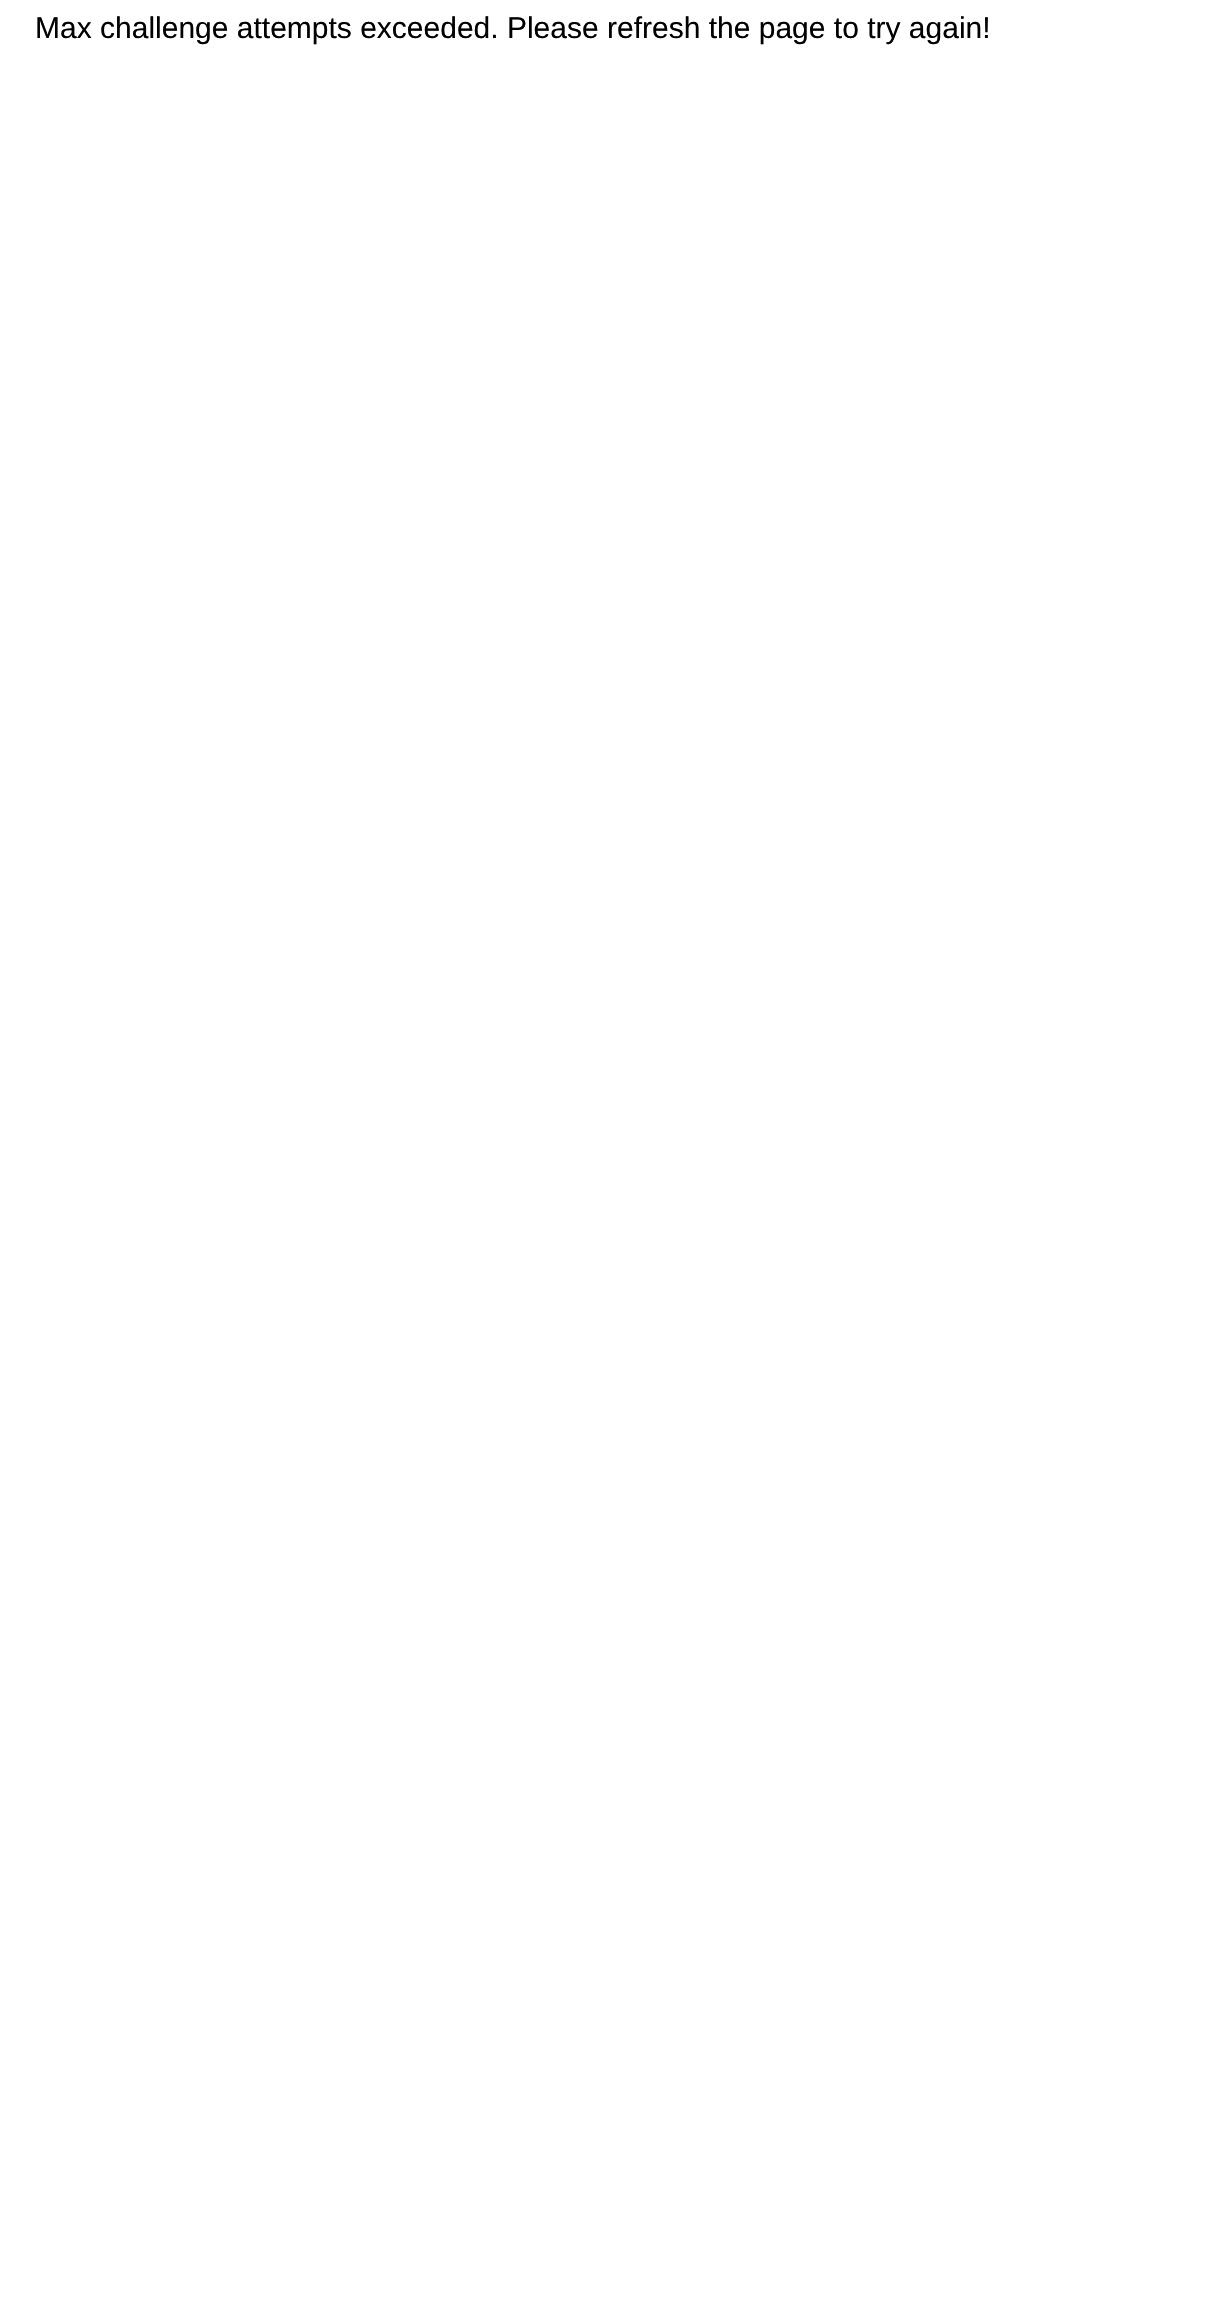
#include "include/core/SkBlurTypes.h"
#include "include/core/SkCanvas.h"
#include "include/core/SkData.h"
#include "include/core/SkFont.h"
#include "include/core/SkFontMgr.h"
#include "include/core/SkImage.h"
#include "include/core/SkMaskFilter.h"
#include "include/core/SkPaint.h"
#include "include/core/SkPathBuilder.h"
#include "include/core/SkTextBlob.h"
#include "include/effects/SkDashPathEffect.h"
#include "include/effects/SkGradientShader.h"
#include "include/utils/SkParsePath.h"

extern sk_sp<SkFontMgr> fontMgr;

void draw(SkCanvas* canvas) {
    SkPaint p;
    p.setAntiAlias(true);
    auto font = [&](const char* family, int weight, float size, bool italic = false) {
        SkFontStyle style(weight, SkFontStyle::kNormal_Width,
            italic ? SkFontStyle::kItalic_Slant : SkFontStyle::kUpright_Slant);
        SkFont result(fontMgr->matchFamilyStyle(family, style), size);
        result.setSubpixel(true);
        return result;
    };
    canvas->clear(0xFFFFFFFF);
    auto font1 = font("Liberation Sans", 400, 30);
    p.setColor(0xFF000000);
    canvas->drawString("Max challenge attempts exceeded. Please refresh the page to try again!", 35, 38, font1, p);
}
